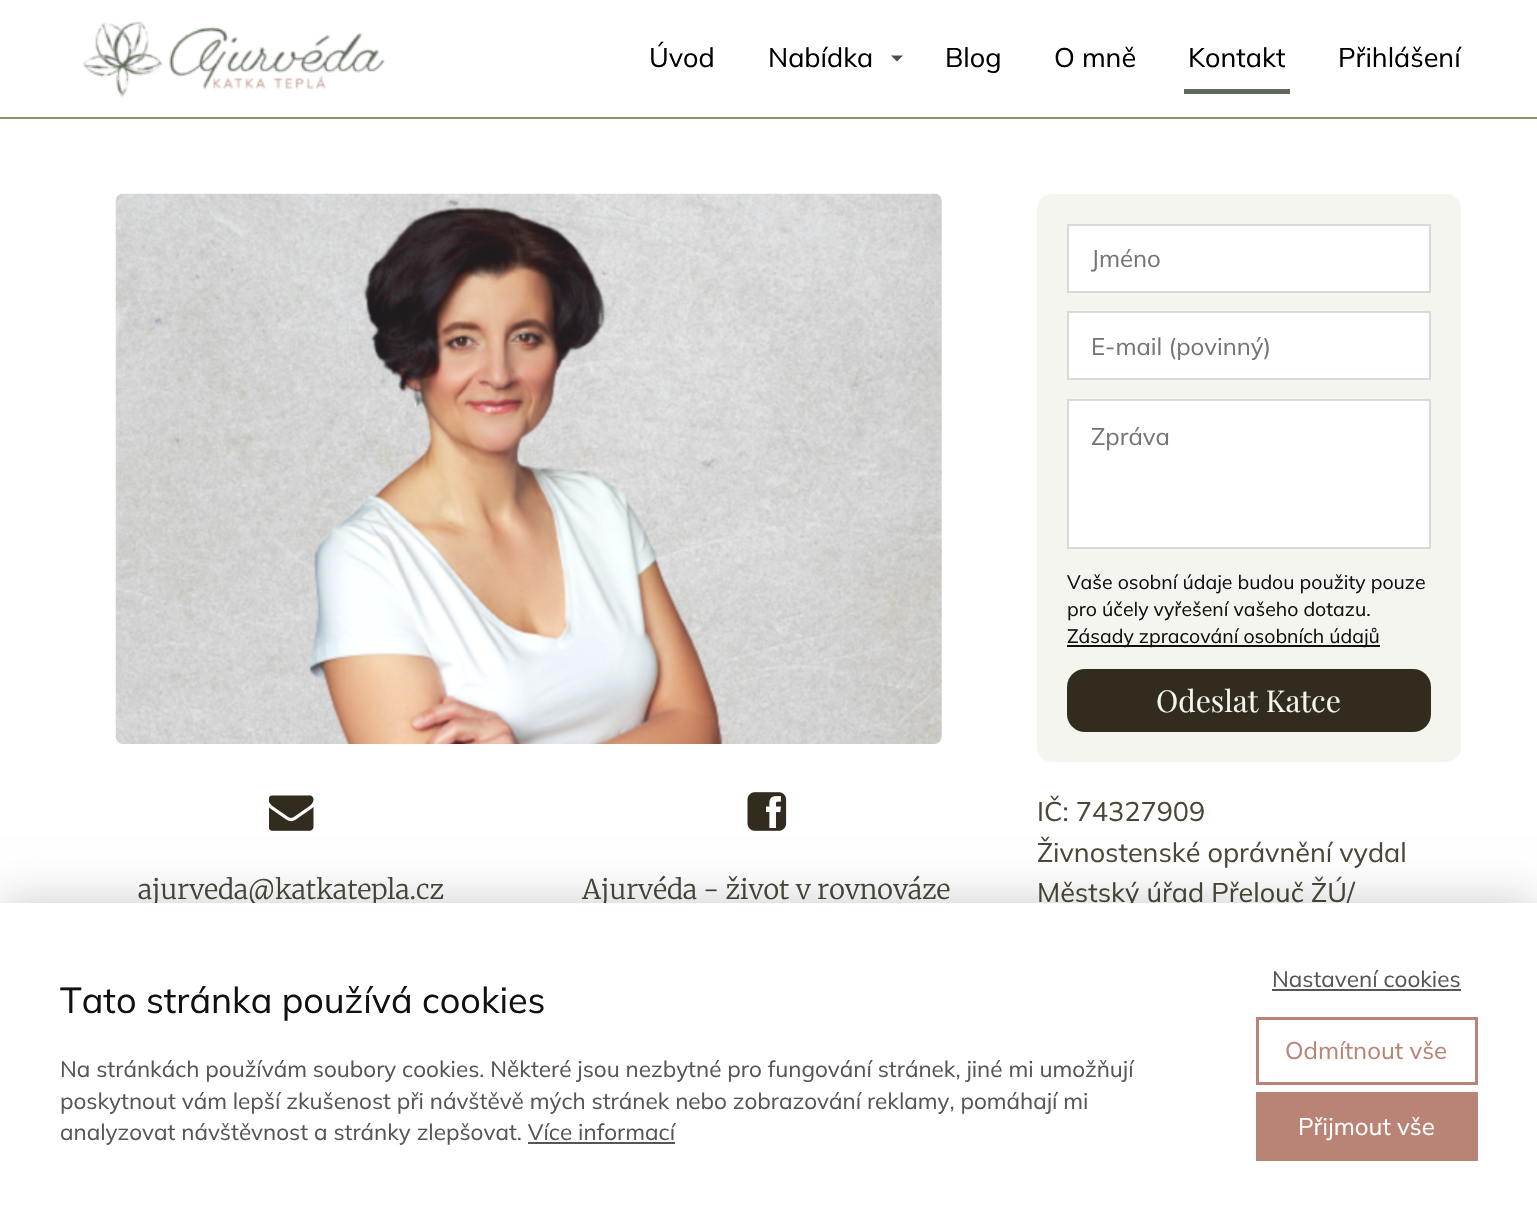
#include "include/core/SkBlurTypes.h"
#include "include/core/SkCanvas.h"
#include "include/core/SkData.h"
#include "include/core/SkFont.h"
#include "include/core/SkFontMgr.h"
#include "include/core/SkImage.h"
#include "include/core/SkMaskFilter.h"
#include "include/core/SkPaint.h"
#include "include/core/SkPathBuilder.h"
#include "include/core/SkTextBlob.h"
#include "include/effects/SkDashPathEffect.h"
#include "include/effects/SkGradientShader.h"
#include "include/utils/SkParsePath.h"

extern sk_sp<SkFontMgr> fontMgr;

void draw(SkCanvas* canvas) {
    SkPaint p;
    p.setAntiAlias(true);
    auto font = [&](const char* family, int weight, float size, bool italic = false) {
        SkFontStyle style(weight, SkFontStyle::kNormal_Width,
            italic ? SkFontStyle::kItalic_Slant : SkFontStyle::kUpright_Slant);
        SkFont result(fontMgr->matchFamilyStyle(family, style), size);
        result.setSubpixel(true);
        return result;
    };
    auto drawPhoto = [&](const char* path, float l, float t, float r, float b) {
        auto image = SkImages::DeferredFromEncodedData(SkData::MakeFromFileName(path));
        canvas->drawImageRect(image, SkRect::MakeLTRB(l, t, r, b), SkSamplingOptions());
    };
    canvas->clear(0xFFFFFFFF);
    drawPhoto("media/1.png", 82, 21, 385, 98);
    auto font1 = font("Mulish", 400, 27);
    p.setColor(0xFF000000);
    canvas->drawString("Úvod", 649, 67, font1, p);
    canvas->drawString("Nabídka", 768, 67, font1, p);
    p.setColor(0xFF4D4D4D);
    canvas->drawPath(SkPathBuilder().moveTo(891, 55.5f).lineTo(903, 55.5f).lineTo(897, 61.5f).close().detach(), p);
    p.setColor(0xFF000000);
    {
        const struct { const char* s; float x, y; } items[] = {
            {"Blog", 945, 67},
            {"O mně", 1054, 67},
            {"Kontakt", 1188, 67},
        };
        for (auto [s, x, y] : items) {
            canvas->drawString(s, x, y, font1, p);
        }
    }
    p.setColor(0xFF616A5A);
    canvas->drawRect(SkRect::MakeLTRB(1184, 89, 1290, 94), p);
    p.setColor(0xFF000000);
    canvas->drawString("Přihlášení", 1338, 67, font1, p);
    p.setColor(0xFF88966A);
    canvas->drawRect(SkRect::MakeLTRB(0, 117, 1537, 119), p);
    drawPhoto("media/2.png", 115, 193, 942, 744);
    drawPhoto("media/3.png", 269, 795, 314, 831);
    auto font2 = font("Merriweather", 300, 27);
    p.setColor(0xFF444939);
    canvas->drawString("ajurveda@katkatepla.cz", 138, 899, font2, p);
    drawPhoto("media/4.png", 747, 792, 787, 831);
    canvas->drawString("Ajurvéda - život v rovnováze", 582, 899, font2, p);
    p.setColor(0xFFF5F5EF);
    canvas->drawRoundRect(SkRect::MakeLTRB(1037, 194, 1461, 762), 15, 15, p);
    p.setColor(0xFFFFFFFF);
    canvas->drawRect(SkRect::MakeLTRB(1068, 225, 1430, 292), p);
    p.setStyle(SkPaint::kStroke_Style);
    p.setStrokeWidth(2);
    p.setColor(0xFFD9D9D9);
    canvas->drawRect(SkRect::MakeLTRB(1068, 225, 1430, 292), p);
    auto font3 = font("Mulish", 400, 24);
    p.setStyle(SkPaint::kFill_Style);
    p.setColor(0xFF757575);
    canvas->drawString("Jméno", 1091, 267, font3, p);
    p.setColor(0xFFFFFFFF);
    canvas->drawRect(SkRect::MakeLTRB(1068, 312, 1430, 379), p);
    p.setStyle(SkPaint::kStroke_Style);
    p.setColor(0xFFD9D9D9);
    canvas->drawRect(SkRect::MakeLTRB(1068, 312, 1430, 379), p);
    canvas->save();
    canvas->clipRect(SkRect::MakeLTRB(1091, 330, 1407, 360));
    p.setStyle(SkPaint::kFill_Style);
    p.setColor(0xFF757575);
    canvas->drawString("E-mail (povinný)", 1091, 355, font3, p);
    canvas->restore();
    p.setColor(0xFFFFFFFF);
    canvas->drawRect(SkRect::MakeLTRB(1068, 400, 1430, 548), p);
    p.setStyle(SkPaint::kStroke_Style);
    p.setColor(0xFFD9D9D9);
    canvas->drawRect(SkRect::MakeLTRB(1068, 400, 1430, 548), p);
    p.setStyle(SkPaint::kFill_Style);
    p.setColor(0xFF757575);
    canvas->drawString("Zpráva", 1091, 445, font3, p);
    auto font4 = font("Mulish", 400, 19.5f);
    p.setColor(0xFF111111);
    canvas->drawString("Vaše osobní údaje budou použity pouze", 1067, 589, font4, p);
    canvas->drawString("pro účely vyřešení vašeho dotazu.", 1067, 616, font4, p);
    canvas->drawRect(SkRect::MakeLTRB(1067, 645, 1380, 647), p);
    canvas->drawString("Zásady zpracování osobních údajů", 1067, 643, font4, p);
    p.setColor(0xFF312C1E);
    canvas->drawRoundRect(SkRect::MakeLTRB(1067, 669, 1431, 732), 18, 18, p);
    auto font5 = font("Playfair Display", 400, 30);
    p.setColor(0xFFF5F5EF);
    canvas->drawString("Odeslat Katce", 1156, 712, font5, p);
    p.setColor(0xFF4B4737);
    {
        const struct { const char* s; float x, y; } items[] = {
            {"IČ: 74327909", 1037, 821},
            {"Živnostenské oprávnění vydal", 1037, 862},
            {"Městský úřad Přelouč ŽÚ/", 1037, 902},
        };
        for (auto [s, x, y] : items) {
            canvas->drawString(s, x, y, font1, p);
        }
    }
    p.setColor(0x33000000);
    p.setMaskFilter(SkMaskFilter::MakeBlur(kNormal_SkBlurStyle, 22.5f));
    canvas->drawRect(SkRect::MakeLTRB(0, 903, 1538, 1221), p);
    p.setMaskFilter(nullptr);
    p.setColor(0xFFFFFFFF);
    canvas->drawRect(SkRect::MakeLTRB(0, 903, 1537, 1221), p);
    auto font6 = font("Mulish", 400, 36);
    p.setColor(0xFF111111);
    canvas->drawString("Tato stránka používá cookies", 60, 1013, font6, p);
    auto font7 = font("Mulish", 400, 22.5f);
    p.setColor(0xFF555555);
    {
        const struct { const char* s; float x, y; } items[] = {
            {"Na stránkách používám soubory cookies. Některé jsou nezbytné pro fungování stránek, jiné mi umožňují", 60, 1077},
            {"poskytnout vám lepší zkušenost při návštěvě mých stránek nebo zobrazování reklamy, pomáhají mi", 60, 1109},
            {"analyzovat návštěvnost a stránky zlepšovat. Více informací", 60, 1140},
        };
        for (auto [s, x, y] : items) {
            canvas->drawString(s, x, y, font7, p);
        }
    }
    canvas->drawRect(SkRect::MakeLTRB(528, 1142, 675, 1144), p);
    canvas->drawString("Nastavení cookies", 1272, 987, font7, p);
    canvas->drawRect(SkRect::MakeLTRB(1272, 989, 1461, 991), p);
    p.setStyle(SkPaint::kStroke_Style);
    p.setStrokeWidth(3);
    p.setColor(0xFFB98476);
    canvas->drawRect(SkRect::MakeLTRB(1257.5f, 1018.5f, 1476.5f, 1083.5f), p);
    p.setStyle(SkPaint::kFill_Style);
    canvas->drawString("Odmítnout vše", 1285, 1059, font3, p);
    canvas->drawRect(SkRect::MakeLTRB(1256, 1092, 1478, 1161), p);
    p.setColor(0xFFFFFFFF);
    canvas->drawString("Přijmout vše", 1298, 1135, font3, p);
}
